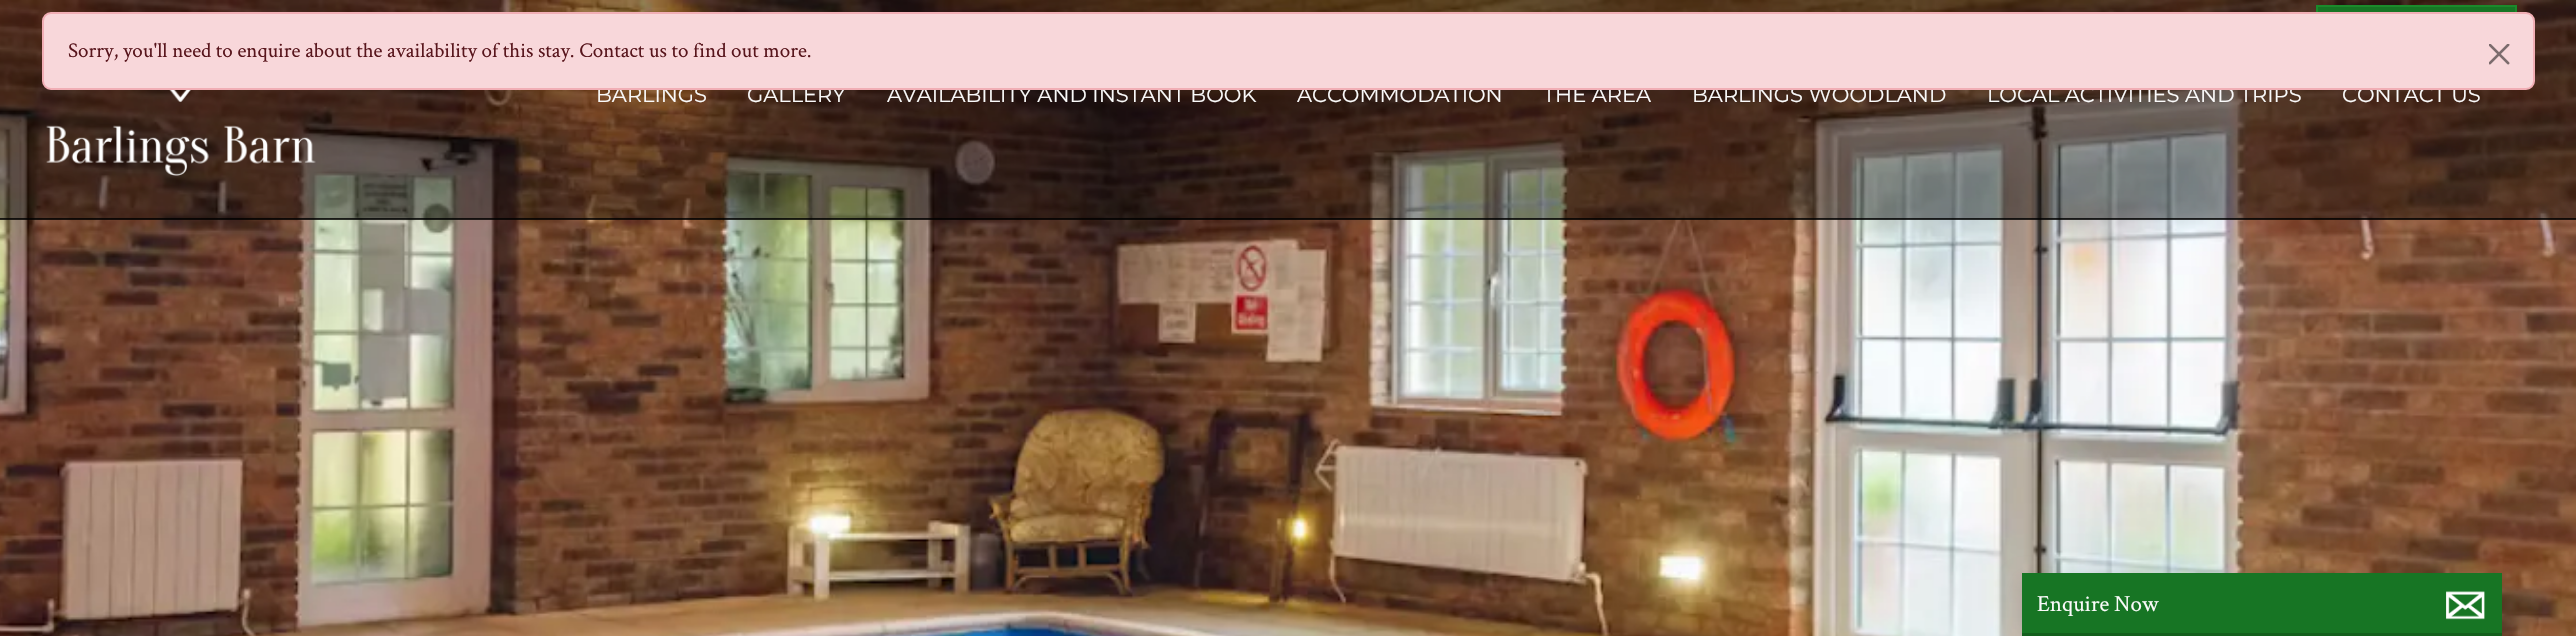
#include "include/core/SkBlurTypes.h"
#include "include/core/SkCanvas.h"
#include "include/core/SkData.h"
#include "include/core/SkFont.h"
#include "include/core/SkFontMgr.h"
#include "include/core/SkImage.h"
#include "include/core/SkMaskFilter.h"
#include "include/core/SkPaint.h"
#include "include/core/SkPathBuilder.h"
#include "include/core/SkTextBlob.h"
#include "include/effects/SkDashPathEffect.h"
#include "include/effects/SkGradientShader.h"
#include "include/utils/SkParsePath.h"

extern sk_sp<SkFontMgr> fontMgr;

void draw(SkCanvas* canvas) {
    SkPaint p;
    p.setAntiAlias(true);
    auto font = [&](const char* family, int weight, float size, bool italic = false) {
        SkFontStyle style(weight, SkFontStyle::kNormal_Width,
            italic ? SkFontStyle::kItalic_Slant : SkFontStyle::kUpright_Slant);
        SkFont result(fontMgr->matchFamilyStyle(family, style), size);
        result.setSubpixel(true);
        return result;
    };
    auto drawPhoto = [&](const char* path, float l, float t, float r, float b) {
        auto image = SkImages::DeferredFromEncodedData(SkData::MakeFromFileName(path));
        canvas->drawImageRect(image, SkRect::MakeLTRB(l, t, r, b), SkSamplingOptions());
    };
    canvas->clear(0xFFFFFFFF);
    drawPhoto("media/1.png", 0, 0, 2576, 636);
    p.setColor(0x66000000);
    canvas->drawRect(SkRect::MakeLTRB(0, 0, 2576, 219), p);
    p.setColor(0xFF177524);
    canvas->drawRect(SkRect::MakeLTRB(2318, 7, 2515, 12), p);
    p.setStyle(SkPaint::kStroke_Style);
    p.setStrokeWidth(2);
    p.setColor(0xFF1B8A2B);
    canvas->drawRect(SkRect::MakeLTRB(2317, 6, 2516, 49), p);
    auto font1 = font("Montserrat", 100, 21);
    p.setStyle(SkPaint::kFill_Style);
    p.setColor(0xFFFAFAFA);
    {
        const struct { const char* s; float x, y; } items[] = {
            {"BARLINGS", 596, 102},
            {"GALLERY", 747, 102},
            {"AVAILABILITY AND INSTANT BOOK", 887, 102},
            {"ACCOMMODATION", 1297, 102},
            {"THE AREA", 1543, 102},
            {"BARLINGS WOODLAND", 1692, 102},
            {"LOCAL ACTIVITIES AND TRIPS", 1987, 102},
            {"CONTACT US", 2342, 102},
        };
        for (auto [s, x, y] : items) {
            canvas->drawString(s, x, y, font1, p);
        }
    }
    p.setColor(0xFFF8D7DA);
    canvas->drawRoundRect(SkRect::MakeLTRB(43, 13, 2534, 89), 8, 8, p);
    p.setStyle(SkPaint::kStroke_Style);
    p.setColor(0xFFF1AEB5);
    canvas->drawRoundRect(SkRect::MakeLTRB(43, 13, 2534, 89), 8, 8, p);
    auto font2 = font("Crimson Text", 400, 21);
    p.setStyle(SkPaint::kFill_Style);
    p.setColor(0xFF58151C);
    canvas->drawString("Sorry, you'll need to enquire about the availability of this stay. Contact us to find out more.", 68, 57, font2, p);
    drawPhoto("media/2.png", 2489, 44, 2510, 65);
    p.setColor(0xCC000000);
    canvas->drawRect(SkRect::MakeLTRB(0, 218, 2576, 220), p);
    drawPhoto("media/3.png", 46, 90, 316, 176);
    p.setColor(0x26000000);
    p.setMaskFilter(SkMaskFilter::MakeBlur(kNormal_SkBlurStyle, 11));
    canvas->drawRect(SkRect::MakeLTRB(2022, 581, 2502, 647), p);
    p.setMaskFilter(nullptr);
    p.setColor(0xFF177524);
    canvas->drawRect(SkRect::MakeLTRB(2022, 573, 2502, 633), p);
    p.setColor(0xFF13601D);
    canvas->drawRect(SkRect::MakeLTRB(2022, 633, 2502, 636), p);
    auto font3 = font("Crimson Text", 400, 23);
    p.setColor(0xFFFAFAFA);
    canvas->drawString("Enquire Now", 2037, 611, font3, p);
    drawPhoto("media/4.png", 2446, 591, 2485, 620);
}
